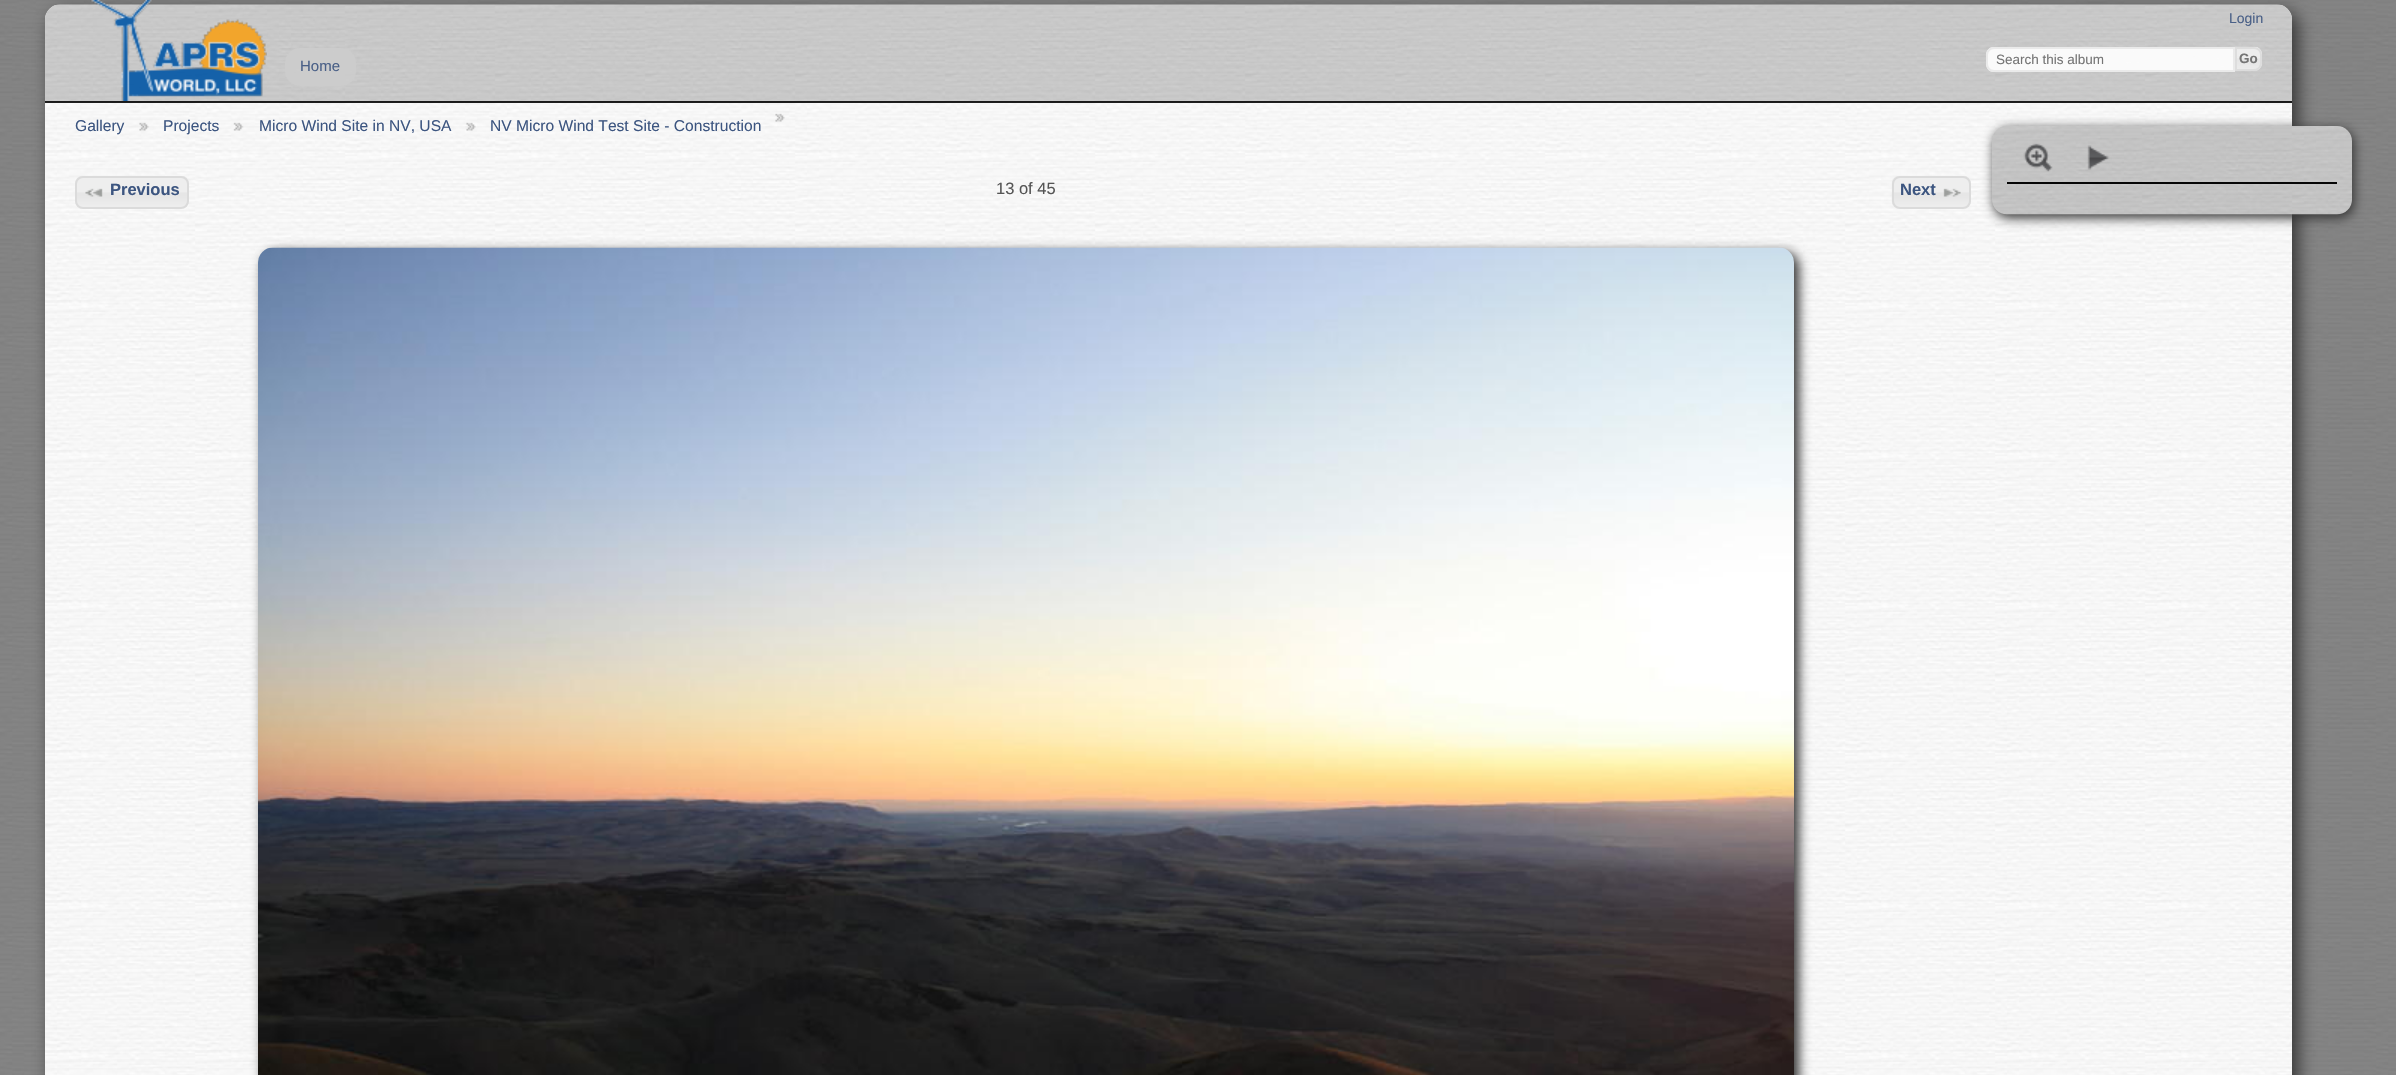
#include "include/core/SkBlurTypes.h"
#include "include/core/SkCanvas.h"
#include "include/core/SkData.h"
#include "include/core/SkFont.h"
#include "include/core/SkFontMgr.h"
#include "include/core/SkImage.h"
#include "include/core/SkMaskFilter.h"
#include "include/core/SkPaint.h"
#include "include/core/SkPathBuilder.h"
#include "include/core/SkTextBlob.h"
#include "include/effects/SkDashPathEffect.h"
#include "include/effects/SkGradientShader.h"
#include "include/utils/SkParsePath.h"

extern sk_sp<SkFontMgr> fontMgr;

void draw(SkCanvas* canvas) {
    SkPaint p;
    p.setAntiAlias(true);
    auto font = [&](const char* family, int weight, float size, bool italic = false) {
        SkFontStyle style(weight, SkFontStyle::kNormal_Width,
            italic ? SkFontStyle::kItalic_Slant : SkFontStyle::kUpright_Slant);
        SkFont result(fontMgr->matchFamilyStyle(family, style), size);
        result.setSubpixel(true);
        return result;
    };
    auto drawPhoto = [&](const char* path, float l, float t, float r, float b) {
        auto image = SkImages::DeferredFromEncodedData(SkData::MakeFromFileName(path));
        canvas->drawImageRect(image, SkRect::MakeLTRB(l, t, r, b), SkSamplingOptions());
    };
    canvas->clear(0xFFFFFFFF);
    drawPhoto("media/1.png", 0, 0, 2396, 1075);
    p.setColor(0xFF333333);
    p.setMaskFilter(SkMaskFilter::MakeBlur(kNormal_SkBlurStyle, 9));
    canvas->drawRoundRect(SkRect::MakeLTRB(51, 11, 2298, 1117), 15, 15, p);
    p.setMaskFilter(nullptr);
    drawPhoto("media/2.png", 45, 4, 2292, 1075);
    drawPhoto("media/3.png", 45, 4, 2292, 102);
    p.setColor(0xE6050505);
    canvas->drawRect(SkRect::MakeLTRB(45, 101, 2292, 103), p);
    drawPhoto("media/4.png", 90, 0, 267, 101);
    auto font1 = font("Liberation Sans", 400, 14);
    p.setColor(0xFF4A6087);
    canvas->drawString("Login", 2229, 23, font1, p);
    p.setColor(0xE6CCCCCC);
    canvas->drawRoundRect(SkRect::MakeLTRB(285, 48, 356, 86), 15, 15, p);
    auto font2 = font("Liberation Sans", 400, 15);
    p.setColor(0xFF4A6087);
    canvas->drawString("Home", 300, 71, font2, p);
    p.setColor(0xE6FFFFFF);
    canvas->drawPath(SkPathBuilder().moveTo(1994, 47).lineTo(2235, 47).lineTo(2235, 72).lineTo(1994, 72).cubicTo(1989.5f, 72, 1986, 68.5f, 1986, 64).lineTo(1986, 55).cubicTo(1986, 50.5f, 1989.5f, 47, 1994, 47).close().detach(), p);
    p.setStyle(SkPaint::kStroke_Style);
    p.setStrokeWidth(2);
    p.setColor(0xE6E8E8E8);
    canvas->drawPath(SkPathBuilder().moveTo(1994, 48).lineTo(2234, 48).lineTo(2234, 71).lineTo(1994, 71).cubicTo(1990, 71, 1987, 68, 1987, 64).lineTo(1987, 55).cubicTo(1987, 51, 1990, 48, 1994, 48).close().detach(), p);
    auto font3 = font("Liberation Sans", 400, 13.5f);
    p.setStyle(SkPaint::kFill_Style);
    p.setColor(0xFF757575);
    canvas->drawString("Search this album", 1996, 64, font3, p);
    p.setColor(0xE6E6E6E6);
    canvas->drawPath(SkPathBuilder().moveTo(2235, 47).lineTo(2254, 47).cubicTo(2258.5f, 47, 2262, 50.5f, 2262, 55).lineTo(2262, 63).cubicTo(2262, 67.5f, 2258.5f, 71, 2254, 71).lineTo(2235, 71).close().detach(), p);
    drawPhoto("media/5.png", 2235, 46, 2262, 70);
    p.setStyle(SkPaint::kStroke_Style);
    p.setColor(0xE6DBDBDB);
    canvas->drawPath(SkPathBuilder().moveTo(2236, 48).lineTo(2254, 48).cubicTo(2258, 48, 2261, 51, 2261, 55).lineTo(2261, 63).cubicTo(2261, 67, 2258, 70, 2254, 70).lineTo(2236, 70).close().detach(), p);
    auto font4 = font("Liberation Sans", 700, 13.5f);
    p.setStyle(SkPaint::kFill_Style);
    p.setColor(0xFF757575);
    canvas->drawString("Go", 2239, 63, font4, p);
    drawPhoto("media/6.png", 775, 113, 785, 122);
    auto font5 = font("Liberation Sans", 400, 15.6f);
    p.setColor(0xFF3C5580);
    canvas->drawString("Gallery", 75, 131, font5, p);
    drawPhoto("media/7.png", 139, 122, 149, 131);
    canvas->drawString("Projects", 163, 131, font5, p);
    drawPhoto("media/8.png", 233, 122, 244, 131);
    canvas->drawString("Micro Wind Site in NV, USA", 259, 131, font5, p);
    drawPhoto("media/9.png", 466, 122, 476, 131);
    canvas->drawString("NV Micro Wind Test Site - Construction", 490, 131, font5, p);
    drawPhoto("media/10.png", 75, 176, 189, 208);
    p.setStyle(SkPaint::kStroke_Style);
    p.setColor(0xFFDBDBDB);
    canvas->drawRoundRect(SkRect::MakeLTRB(76, 177, 188, 208), 7, 7, p);
    drawPhoto("media/11.png", 85, 188, 103, 197);
    auto font6 = font("Liberation Sans", 700, 16.5f);
    p.setStyle(SkPaint::kFill_Style);
    p.setColor(0xFF3C5580);
    canvas->drawString("Previous", 110, 195, font6, p);
    auto font7 = font("Liberation Sans", 400, 16.5f);
    p.setColor(0xFF555555);
    canvas->drawString("13 of 45", 996, 194, font7, p);
    drawPhoto("media/12.png", 1891, 176, 1971, 208);
    p.setStyle(SkPaint::kStroke_Style);
    p.setColor(0xFFDBDBDB);
    canvas->drawRoundRect(SkRect::MakeLTRB(1893, 177, 1970, 208), 7, 7, p);
    p.setStyle(SkPaint::kFill_Style);
    p.setColor(0xFF3C5580);
    canvas->drawString("Next", 1900, 195, font6, p);
    drawPhoto("media/13.png", 1943, 188, 1961, 197);
    p.setColor(0xFF333333);
    p.setMaskFilter(SkMaskFilter::MakeBlur(kNormal_SkBlurStyle, 6));
    canvas->drawRoundRect(SkRect::MakeLTRB(263, 252, 1799, 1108), 15, 15, p);
    p.setMaskFilter(nullptr);
    drawPhoto("media/14.png", 258, 247, 1794, 1075);
    p.setMaskFilter(SkMaskFilter::MakeBlur(kNormal_SkBlurStyle, 6));
    canvas->drawRoundRect(SkRect::MakeLTRB(1994, 129, 2354, 218), 15, 15, p);
    p.setMaskFilter(nullptr);
    drawPhoto("media/15.png", 1992, 126, 2352, 215);
    p.setColor(0xFF050505);
    canvas->drawRect(SkRect::MakeLTRB(2007, 182, 2337, 184), p);
    drawPhoto("media/16.png", 2023, 143, 2053, 172);
    drawPhoto("media/17.png", 2087, 145, 2110, 170);
}
